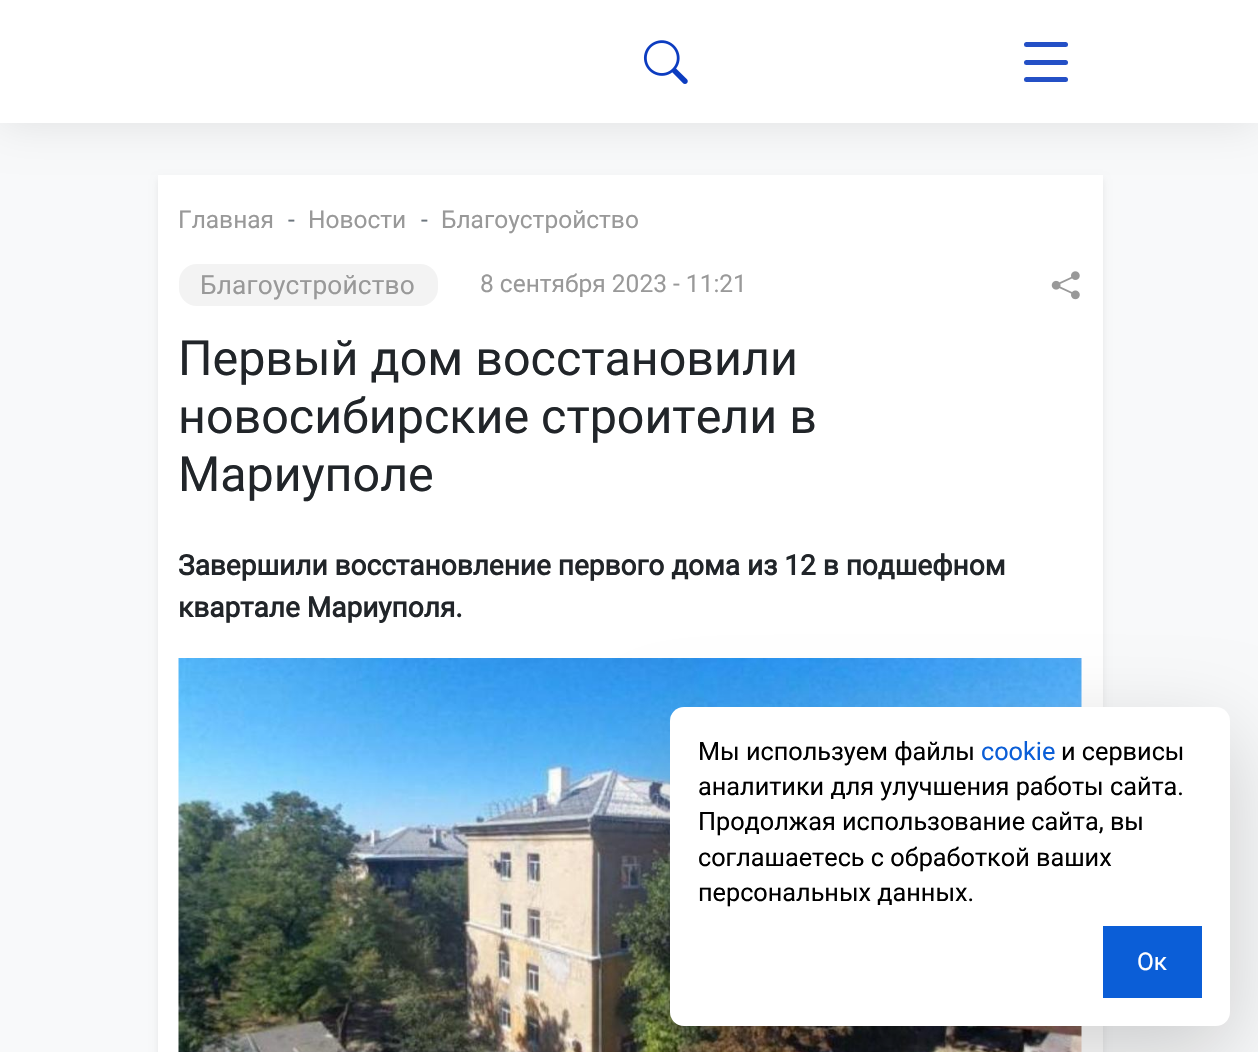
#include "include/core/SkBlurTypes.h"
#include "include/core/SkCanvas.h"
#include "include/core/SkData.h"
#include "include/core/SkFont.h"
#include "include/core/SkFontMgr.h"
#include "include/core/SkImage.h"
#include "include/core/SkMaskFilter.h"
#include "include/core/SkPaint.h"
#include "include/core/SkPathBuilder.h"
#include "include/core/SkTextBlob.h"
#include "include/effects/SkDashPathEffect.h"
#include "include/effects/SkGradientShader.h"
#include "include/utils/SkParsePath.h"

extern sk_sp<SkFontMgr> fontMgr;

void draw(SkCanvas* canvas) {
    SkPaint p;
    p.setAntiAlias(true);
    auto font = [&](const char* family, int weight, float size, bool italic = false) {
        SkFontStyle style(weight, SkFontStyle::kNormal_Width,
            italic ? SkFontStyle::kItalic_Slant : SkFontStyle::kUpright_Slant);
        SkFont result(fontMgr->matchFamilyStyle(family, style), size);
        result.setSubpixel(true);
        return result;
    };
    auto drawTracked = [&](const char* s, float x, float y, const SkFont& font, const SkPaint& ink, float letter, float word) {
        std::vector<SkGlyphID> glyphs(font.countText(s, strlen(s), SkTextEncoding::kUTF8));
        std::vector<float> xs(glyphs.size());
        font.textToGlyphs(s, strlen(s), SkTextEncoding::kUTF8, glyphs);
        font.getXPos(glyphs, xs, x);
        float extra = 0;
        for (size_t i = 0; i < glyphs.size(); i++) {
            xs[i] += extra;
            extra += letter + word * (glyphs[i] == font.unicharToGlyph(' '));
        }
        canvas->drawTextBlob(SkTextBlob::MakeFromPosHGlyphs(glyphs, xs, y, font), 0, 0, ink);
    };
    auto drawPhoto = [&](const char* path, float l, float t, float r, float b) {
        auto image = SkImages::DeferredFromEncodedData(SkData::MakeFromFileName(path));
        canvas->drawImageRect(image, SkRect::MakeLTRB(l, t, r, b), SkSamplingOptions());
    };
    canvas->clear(0xFFF8F9FA);
    p.setColor(0x12000000);
    p.setMaskFilter(SkMaskFilter::MakeBlur(kNormal_SkBlurStyle, 3.5f));
    canvas->drawRect(SkRect::MakeLTRB(158, 179, 1103, 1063), p);
    p.setMaskFilter(nullptr);
    p.setColor(0xFFFFFFFF);
    canvas->drawRect(SkRect::MakeLTRB(158, 175, 1103, 1052), p);
    p.setColor(0x1A000000);
    p.setMaskFilter(SkMaskFilter::MakeBlur(kNormal_SkBlurStyle, 22));
    canvas->drawRect(SkRect::MakeLTRB(0, 0, 1258, 123), p);
    p.setMaskFilter(nullptr);
    p.setColor(0xFFFFFFFF);
    canvas->drawRect(SkRect::MakeLTRB(0, 0, 1258, 123), p);
    drawPhoto("media/1.png", 643, 40, 688, 84);
    p.setColor(0xFF2450C6);
    canvas->drawRoundRect(SkRect::MakeLTRB(1024, 60, 1068, 65), 2.5f, 2.5f, p);
    canvas->drawRoundRect(SkRect::MakeLTRB(1024, 42, 1068, 47), 2.5f, 2.5f, p);
    canvas->drawRoundRect(SkRect::MakeLTRB(1024, 77, 1068, 82), 2.5f, 2.5f, p);
    auto font1 = font("Roboto", 400, 24.5f);
    p.setColor(0xFF999999);
    canvas->drawString("Главная", 178, 228, font1, p);
    p.setColor(0xFF6C757D);
    canvas->drawString("-", 288, 228, font1, p);
    p.setColor(0xFF999999);
    canvas->drawString("Новости", 308, 228, font1, p);
    p.setColor(0xFF6C757D);
    canvas->drawString("-", 421, 228, font1, p);
    p.setColor(0xFF999999);
    canvas->drawString("Благоустройство", 441, 228, font1, p);
    p.setColor(0xFFF3F3F3);
    canvas->drawRoundRect(SkRect::MakeLTRB(179, 264, 438, 306), 18, 18, p);
    auto font2 = font("Roboto", 400, 26.25f);
    p.setColor(0xFF999999);
    drawTracked("Благоустройство", 200, 294, font2, p, 0.2f, 0);
    canvas->drawString("8 сентября 2023 - 11:21", 480, 292, font1, p);
    drawPhoto("media/2.png", 1051, 271, 1080, 300);
    auto font3 = font("Roboto", 400, 48.4f);
    p.setColor(0xFF212529);
    {
        const struct { const char* s; float x, y; } items[] = {
            {"Первый дом восстановили", 178, 375},
            {"новосибирские строители в", 178, 433},
            {"Мариуполе", 178, 491},
        };
        for (auto [s, x, y] : items) {
            canvas->drawString(s, x, y, font3, p);
        }
    }
    auto font4 = font("Roboto", 700, 28);
    canvas->drawString("Завершили восстановление первого дома из 12 в подшефном", 178, 575, font4, p);
    canvas->drawString("квартале Мариуполя.", 178, 617, font4, p);
    drawPhoto("media/3.png", 178, 658, 1082, 1052);
    p.setColor(0x2E000000);
    p.setMaskFilter(SkMaskFilter::MakeBlur(kNormal_SkBlurStyle, 42));
    canvas->drawRoundRect(SkRect::MakeLTRB(670, 735, 1230, 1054), 14, 14, p);
    p.setMaskFilter(nullptr);
    p.setColor(0xFFFFFFFF);
    canvas->drawRoundRect(SkRect::MakeLTRB(670, 707, 1230, 1026), 14, 14, p);
    auto font5 = font("Roboto", 400, 25.25f);
    p.setColor(0xFF000000);
    canvas->drawString("Мы используем файлы", 698, 760, font5, p);
    p.setColor(0xFF0B5ED7);
    canvas->drawString("cookie", 981, 760, font5, p);
    p.setColor(0xFF000000);
    {
        const struct { const char* s; float x, y; } items[] = {
            {"и сервисы", 1061, 760},
            {"аналитики для улучшения работы сайта.", 698, 795},
            {"Продолжая использование сайта, вы", 698, 830},
            {"соглашаетесь с обработкой ваших", 698, 866},
            {"персональных данных.", 698, 901},
        };
        for (auto [s, x, y] : items) {
            canvas->drawString(s, x, y, font5, p);
        }
    }
    p.setColor(0xFF0B5ED7);
    canvas->drawRect(SkRect::MakeLTRB(1103, 926, 1202, 998), p);
    p.setColor(0xFFFFFFFF);
    canvas->drawString("Ок", 1137, 970, font1, p);
}
